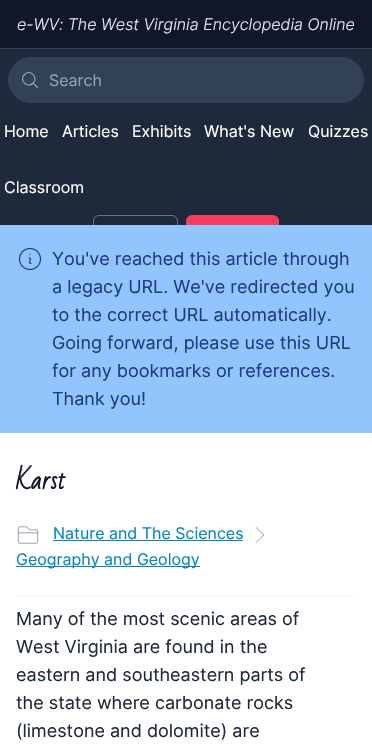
#include "include/core/SkBlurTypes.h"
#include "include/core/SkCanvas.h"
#include "include/core/SkData.h"
#include "include/core/SkFont.h"
#include "include/core/SkFontMgr.h"
#include "include/core/SkImage.h"
#include "include/core/SkMaskFilter.h"
#include "include/core/SkPaint.h"
#include "include/core/SkPathBuilder.h"
#include "include/core/SkTextBlob.h"
#include "include/effects/SkDashPathEffect.h"
#include "include/effects/SkGradientShader.h"
#include "include/utils/SkParsePath.h"

extern sk_sp<SkFontMgr> fontMgr;

void draw(SkCanvas* canvas) {
    SkPaint p;
    p.setAntiAlias(true);
    auto font = [&](const char* family, int weight, float size, bool italic = false) {
        SkFontStyle style(weight, SkFontStyle::kNormal_Width,
            italic ? SkFontStyle::kItalic_Slant : SkFontStyle::kUpright_Slant);
        SkFont result(fontMgr->matchFamilyStyle(family, style), size);
        result.setSubpixel(true);
        return result;
    };
    auto drawPhoto = [&](const char* path, float l, float t, float r, float b) {
        auto image = SkImages::DeferredFromEncodedData(SkData::MakeFromFileName(path));
        canvas->drawImageRect(image, SkRect::MakeLTRB(l, t, r, b), SkSamplingOptions());
    };
    canvas->clear(0xFF1E293B);
    p.setColor(0xFF0F172A);
    canvas->drawRect(SkRect::MakeLTRB(0, 0, 372, 48), p);
    p.setColor(0xFF334155);
    canvas->drawRect(SkRect::MakeLTRB(0, 48, 372, 49), p);
    auto font1 = font("Inter", 300, 16, true);
    p.setColor(0xFFE5E7EB);
    canvas->drawString("e-WV: The West Virginia Encyclopedia Online", 17, 30, font1, p);
    p.setColor(0xFF334155);
    canvas->drawRoundRect(SkRect::MakeLTRB(8.5f, 57.5f, 363.5f, 102.5f), 22.5f, 22.5f, p);
    p.setStyle(SkPaint::kStroke_Style);
    p.setStrokeWidth(1);
    canvas->drawRoundRect(SkRect::MakeLTRB(8.5f, 57.5f, 363.5f, 102.5f), 22.5f, 22.5f, p);
    p.setStrokeWidth(1.2f);
    p.setStrokeCap(SkPaint::kRound_Cap);
    p.setStrokeJoin(SkPaint::kRound_Join);
    p.setColor(0xFF94A3B8);
    canvas->drawPath(SkPathBuilder().moveTo(37.5f, 87.5f).lineTo(33, 83).moveTo(33, 83).cubicTo(39, 77.5f, 30, 68.5f, 24.5f, 74.5f).cubicTo(18.5f, 80, 27.5f, 89, 33, 83).close().detach(), p);
    auto font2 = font("Inter", 400, 16);
    p.setStyle(SkPaint::kFill_Style);
    canvas->drawString("Search", 49, 86, font2, p);
    p.setColor(0xFFFFFFFF);
    {
        const struct { const char* s; float x, y; } items[] = {
            {"Home", 4, 137},
            {"Articles", 62, 137},
            {"Exhibits", 132, 137},
            {"What's New", 204, 137},
            {"Quizzes", 308, 137},
            {"Classroom", 4, 193},
        };
        for (auto [s, x, y] : items) {
            canvas->drawString(s, x, y, font2, p);
        }
    }
    p.setStyle(SkPaint::kStroke_Style);
    p.setStrokeWidth(1);
    p.setStrokeCap(SkPaint::kButt_Cap);
    p.setStrokeJoin(SkPaint::kMiter_Join);
    p.setColor(0xFF64748B);
    canvas->drawRoundRect(SkRect::MakeLTRB(93.5f, 215.5f, 177.5f, 264.5f), 5.5f, 5.5f, p);
    p.setStyle(SkPaint::kFill_Style);
    p.setColor(0xFFF43F5E);
    canvas->drawRoundRect(SkRect::MakeLTRB(186, 215, 279, 265), 6, 6, p);
    p.setColor(0xFF93C5FD);
    canvas->drawRect(SkRect::MakeLTRB(0, 225, 372, 433), p);
    drawPhoto("media/1.png", 18, 247, 42, 271);
    auto font3 = font("Inter", 400, 18);
    p.setColor(0xFF1E3A8A);
    {
        const struct { const char* s; float x, y; } items[] = {
            {"You've reached this article through", 52, 265},
            {"a legacy URL. We've redirected you", 52, 293},
            {"to the correct URL automatically.", 52, 321},
            {"Going forward, please use this URL", 52, 349},
            {"for any bookmarks or references.", 52, 377},
            {"Thank you!", 52, 405},
        };
        for (auto [s, x, y] : items) {
            canvas->drawString(s, x, y, font3, p);
        }
    }
    p.setColor(0xFFFFFFFF);
    canvas->drawRect(SkRect::MakeLTRB(0, 433, 372, 746), p);
    p.setColor(0xFFF9FAFB);
    canvas->drawRect(SkRect::MakeLTRB(16, 595, 356, 597), p);
    auto font4 = font("Bad Script", 700, 24);
    p.setColor(0xFF111827);
    canvas->drawString("Karst", 16, 489, font4, p);
    drawPhoto("media/2.png", 17, 526, 39, 544);
    p.setColor(0xFF0284C7);
    canvas->drawString("Nature and The Sciences", 53, 539, font2, p);
    canvas->drawRect(SkRect::MakeLTRB(53, 540, 243, 541), p);
    p.setStyle(SkPaint::kStroke_Style);
    p.setStrokeCap(SkPaint::kRound_Cap);
    p.setStrokeJoin(SkPaint::kRound_Join);
    p.setColor(0xFF9CA3AF);
    canvas->drawPath(SkPathBuilder().moveTo(256, 527.5f).lineTo(264, 535).lineTo(256, 542.5f).detach(), p);
    p.setStyle(SkPaint::kFill_Style);
    p.setColor(0xFF0284C7);
    canvas->drawRect(SkRect::MakeLTRB(16, 566, 200, 567), p);
    canvas->drawString("Geography and Geology", 16, 565, font2, p);
    p.setColor(0xFF1F2937);
    {
        const struct { const char* s; float x, y; } items[] = {
            {"Many of the most scenic areas of", 16, 625},
            {"West Virginia are found in the", 16, 653},
            {"eastern and southeastern parts of", 16, 681},
            {"the state where carbonate rocks", 16, 709},
            {"(limestone and dolomite) are", 16, 737},
        };
        for (auto [s, x, y] : items) {
            canvas->drawString(s, x, y, font3, p);
        }
    }
}
